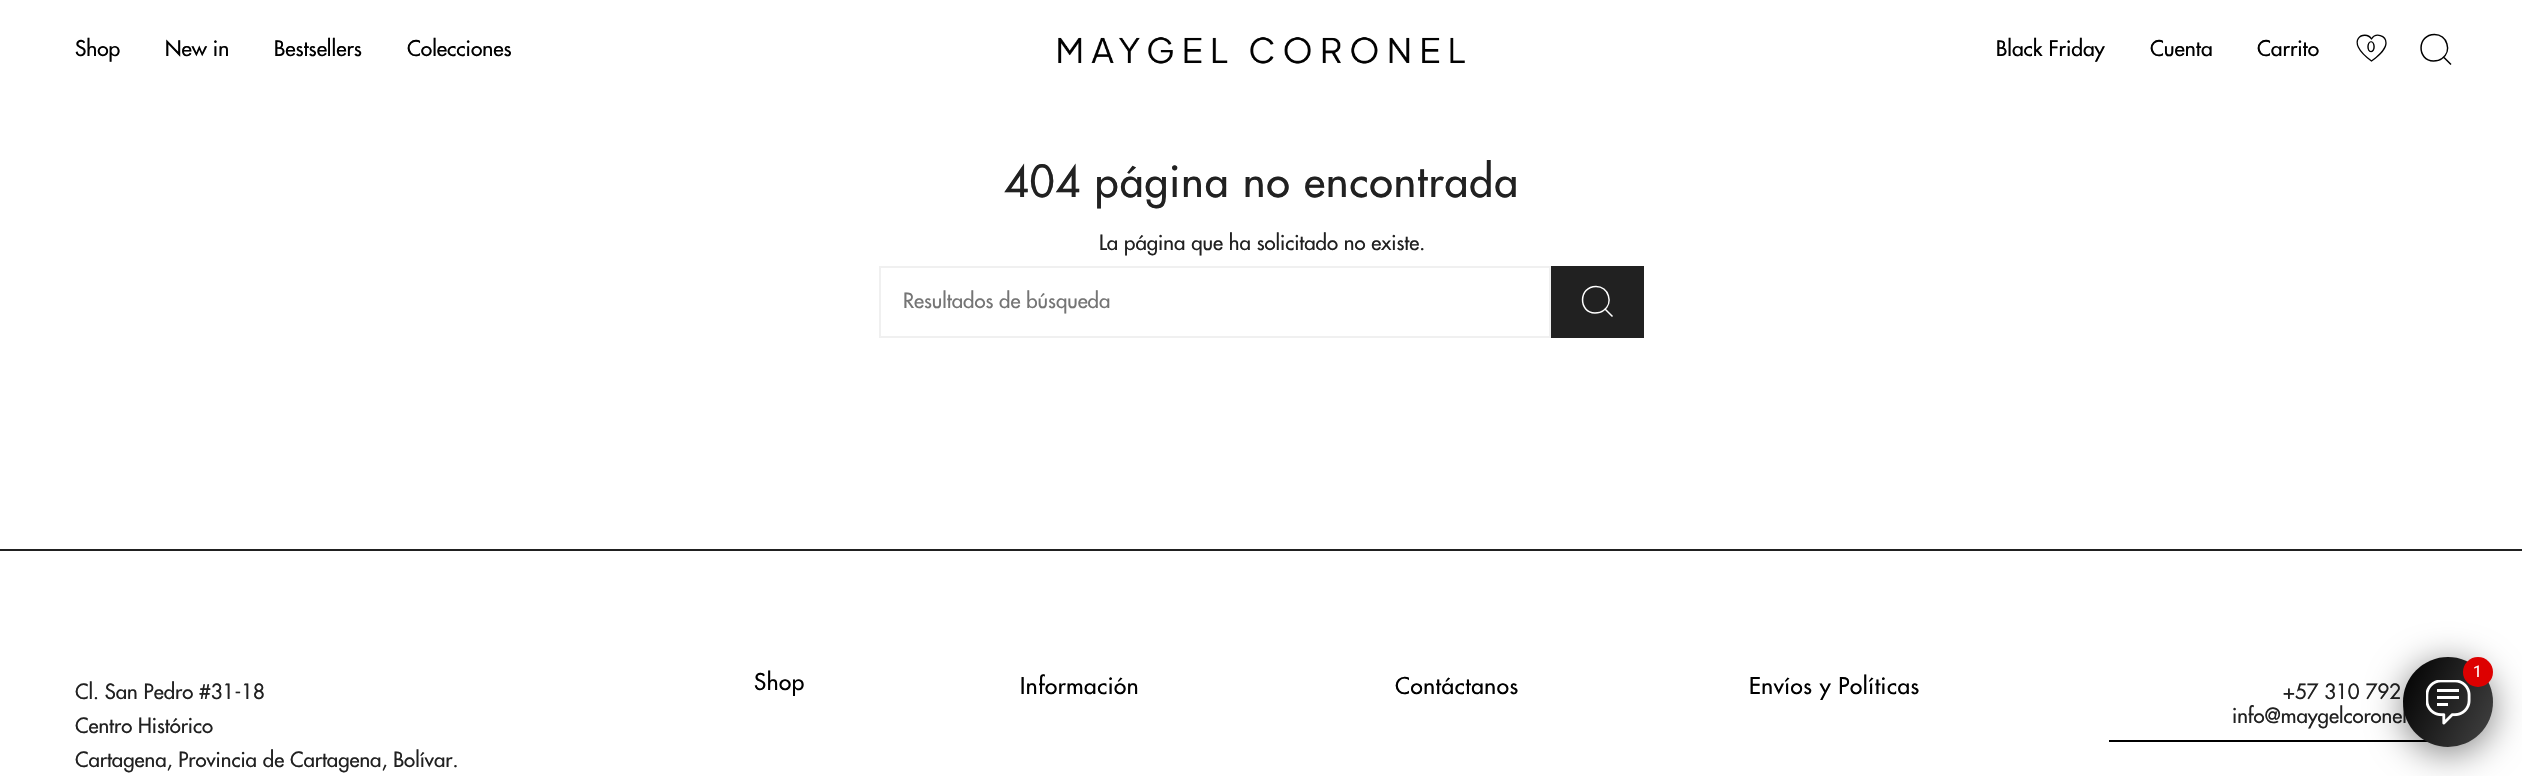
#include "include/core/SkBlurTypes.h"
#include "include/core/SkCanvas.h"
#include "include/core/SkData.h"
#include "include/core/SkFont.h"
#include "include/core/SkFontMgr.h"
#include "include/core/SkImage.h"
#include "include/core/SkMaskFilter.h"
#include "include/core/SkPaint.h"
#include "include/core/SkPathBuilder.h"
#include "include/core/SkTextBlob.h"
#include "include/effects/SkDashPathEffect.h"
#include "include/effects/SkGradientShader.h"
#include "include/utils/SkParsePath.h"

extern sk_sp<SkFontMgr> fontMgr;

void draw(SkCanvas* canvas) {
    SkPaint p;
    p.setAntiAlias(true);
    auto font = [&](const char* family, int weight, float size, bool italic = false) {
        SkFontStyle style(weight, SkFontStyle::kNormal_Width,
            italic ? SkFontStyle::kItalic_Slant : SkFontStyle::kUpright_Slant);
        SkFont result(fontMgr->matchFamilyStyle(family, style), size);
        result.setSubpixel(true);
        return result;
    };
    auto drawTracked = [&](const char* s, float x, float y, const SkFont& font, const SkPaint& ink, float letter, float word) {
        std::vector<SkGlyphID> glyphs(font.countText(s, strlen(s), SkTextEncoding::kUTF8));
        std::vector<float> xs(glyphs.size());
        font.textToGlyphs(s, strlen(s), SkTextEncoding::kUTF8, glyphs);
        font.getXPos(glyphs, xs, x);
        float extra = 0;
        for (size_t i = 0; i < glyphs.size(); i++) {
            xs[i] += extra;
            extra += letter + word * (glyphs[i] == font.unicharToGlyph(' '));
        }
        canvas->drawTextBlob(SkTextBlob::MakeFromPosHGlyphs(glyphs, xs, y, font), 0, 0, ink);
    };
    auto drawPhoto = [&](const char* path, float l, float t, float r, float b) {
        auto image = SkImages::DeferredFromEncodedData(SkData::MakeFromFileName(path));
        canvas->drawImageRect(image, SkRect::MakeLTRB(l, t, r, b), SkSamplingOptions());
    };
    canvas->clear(0xFFFFFFFF);
    auto font1 = font("Futura", 100, 21);
    p.setColor(0xFF000000);
    {
        const struct { const char* s; float x, y; } items[] = {
            {"Shop", 75, 56},
            {"New in", 165, 56},
            {"Bestsellers", 274, 56},
            {"Colecciones", 407, 56},
        };
        for (auto [s, x, y] : items) {
            canvas->drawString(s, x, y, font1, p);
        }
    }
    drawPhoto("media/1.png", 1058, 37, 1465, 64);
    {
        const struct { const char* s; float x, y; } items[] = {
            {"Black Friday", 1996, 56},
            {"Cuenta", 2150, 56},
            {"Carrito", 2257, 56},
        };
        for (auto [s, x, y] : items) {
            canvas->drawString(s, x, y, font1, p);
        }
    }
    p.setStyle(SkPaint::kStroke_Style);
    p.setStrokeWidth(1.3f);
    p.setStrokeCap(SkPaint::kRound_Cap);
    p.setStrokeJoin(SkPaint::kRound_Join);
    canvas->drawPath(SkPathBuilder().moveTo(2386, 43).cubicTo(2386, 35, 2375.5f, 32.5f, 2371.5f, 39).cubicTo(2365.5f, 29, 2342.5f, 40, 2371.5f, 61).cubicTo(2376.5f, 57.5f, 2386, 49.5f, 2386, 43).close().detach(), p);
    auto font2 = font("Futura", 100, 14);
    p.setStyle(SkPaint::kFill_Style);
    canvas->drawString("0", 2367, 52, font2, p);
    p.setStyle(SkPaint::kStroke_Style);
    p.setStrokeWidth(1.5f);
    p.setStrokeCap(SkPaint::kButt_Cap);
    p.setStrokeJoin(SkPaint::kMiter_Join);
    canvas->drawPath(SkPathBuilder().moveTo(2434.5f, 34.5f).cubicTo(2447, 34.5f, 2452.5f, 51, 2442, 58.5f).cubicTo(2439.5f, 60.5f, 2436.5f, 61, 2433.5f, 61).cubicTo(2416.5f, 60.5f, 2417, 34.5f, 2434.5f, 34.5f).close().moveTo(2443.5f, 57).lineTo(2451, 64.5f).detach(), p);
    auto font3 = font("Futura", 100, 42.75f);
    p.setStyle(SkPaint::kFill_Style);
    p.setColor(0xFF212121);
    drawTracked("404 página no encontrada", 1004, 197, font3, p, 1.1f, 0);
    auto font4 = font("Futura", 100, 20.4f);
    canvas->drawString("La página que ha solicitado no existe.", 1099, 250, font4, p);
    p.setStyle(SkPaint::kStroke_Style);
    p.setStrokeWidth(2);
    p.setColor(0xFFF0F0F0);
    canvas->drawRect(SkRect::MakeLTRB(880, 267, 1550, 337), p);
    p.setStyle(SkPaint::kFill_Style);
    p.setColor(0xFF757575);
    canvas->drawString("Resultados de búsqueda", 903, 308, font4, p);
    p.setColor(0xFF212121);
    canvas->drawRect(SkRect::MakeLTRB(1551, 266, 1644, 338), p);
    p.setStyle(SkPaint::kStroke_Style);
    p.setStrokeWidth(1.5f);
    p.setColor(0xFFFFFFFF);
    canvas->drawPath(SkPathBuilder().moveTo(1596, 286.5f).cubicTo(1608.5f, 286.5f, 1614, 303, 1603.5f, 310.5f).cubicTo(1601, 312.5f, 1598, 313, 1595, 313).cubicTo(1578, 312.5f, 1578.5f, 286.5f, 1596, 286.5f).close().moveTo(1605, 309).lineTo(1612.5f, 316.5f).detach(), p);
    p.setStyle(SkPaint::kFill_Style);
    p.setColor(0xFF212121);
    canvas->drawRect(SkRect::MakeLTRB(0, 549, 2522, 551), p);
    {
        const struct { const char* s; float x, y; } items[] = {
            {"Cl. San Pedro #31-18", 75, 699},
            {"Centro Histórico", 75, 733},
            {"Cartagena, Provincia de Cartagena, Bolívar.", 75, 767},
        };
        for (auto [s, x, y] : items) {
            canvas->drawString(s, x, y, font4, p);
        }
    }
    auto font5 = font("Futura", 100, 22.5f);
    p.setColor(0xFF000000);
    {
        const struct { const char* s; float x, y; } items[] = {
            {"Shop", 754, 690},
            {"Información", 1020, 694},
            {"Contáctanos", 1395, 694},
            {"Envíos y Políticas", 1749, 694},
        };
        for (auto [s, x, y] : items) {
            drawTracked(s, x, y, font5, p, 0.6f, 0);
        }
    }
    canvas->drawRect(SkRect::MakeLTRB(2109, 740, 2428, 742), p);
    p.setColor(0xFF212121);
    canvas->drawString("+57 310 792", 2283, 699, font4, p);
    canvas->drawString("info@maygelcoronel", 2232, 723, font4, p);
    p.setColor(0x80000000);
    p.setMaskFilter(SkMaskFilter::MakeBlur(kNormal_SkBlurStyle, 18));
    canvas->drawRoundRect(SkRect::MakeLTRB(2403, 663, 2493, 753), 45, 45, p);
    p.setMaskFilter(nullptr);
    {
        const SkColor colors[] = {0xFF000000, 0xFF434343};
        const float stops[] = {0, 1};
        const SkPoint ends[] = {{2394, 677}, {2502, 727}};
        p.setShader(SkGradientShader::MakeLinear(ends, colors, stops, 2, SkTileMode::kClamp));
        p.setAlpha(255);
    }
    canvas->drawCircle(2448, 702, 45, p);
    drawPhoto("media/2.png", 2426, 680, 2471, 725);
    p.setShader(nullptr);
    p.setColor(0xFFDD0000);
    canvas->drawCircle(2478, 672, 15, p);
    auto font6 = font("Roboto", 400, 16);
    p.setColor(0xFFFFFFFF);
    canvas->drawString("1", 2473, 677, font6, p);
}
